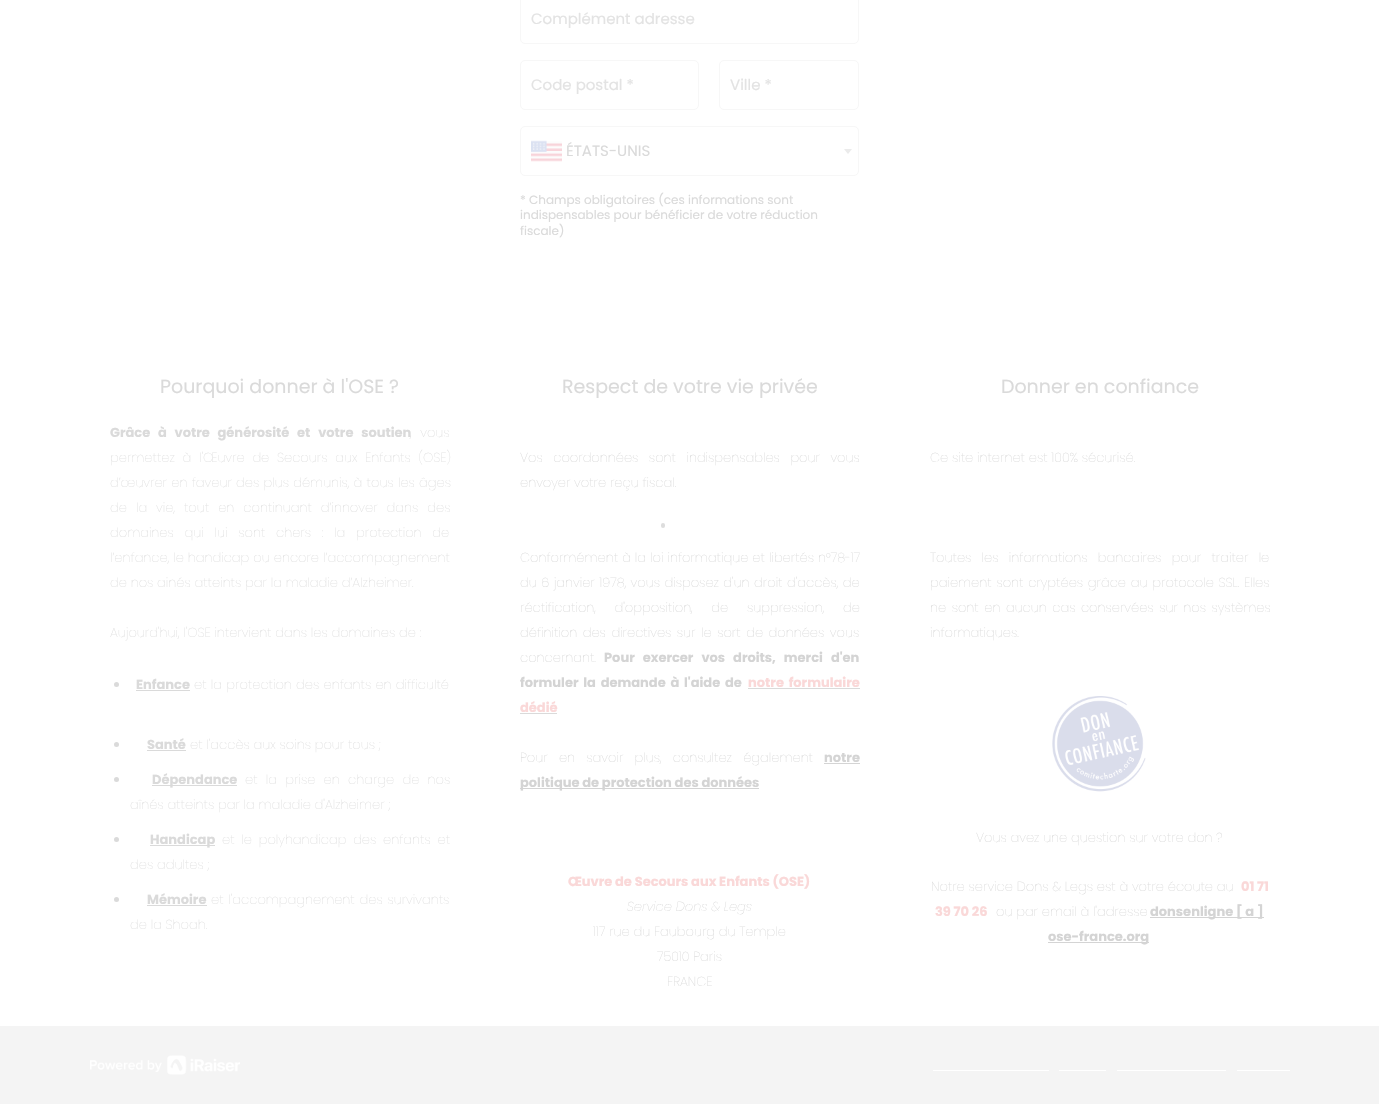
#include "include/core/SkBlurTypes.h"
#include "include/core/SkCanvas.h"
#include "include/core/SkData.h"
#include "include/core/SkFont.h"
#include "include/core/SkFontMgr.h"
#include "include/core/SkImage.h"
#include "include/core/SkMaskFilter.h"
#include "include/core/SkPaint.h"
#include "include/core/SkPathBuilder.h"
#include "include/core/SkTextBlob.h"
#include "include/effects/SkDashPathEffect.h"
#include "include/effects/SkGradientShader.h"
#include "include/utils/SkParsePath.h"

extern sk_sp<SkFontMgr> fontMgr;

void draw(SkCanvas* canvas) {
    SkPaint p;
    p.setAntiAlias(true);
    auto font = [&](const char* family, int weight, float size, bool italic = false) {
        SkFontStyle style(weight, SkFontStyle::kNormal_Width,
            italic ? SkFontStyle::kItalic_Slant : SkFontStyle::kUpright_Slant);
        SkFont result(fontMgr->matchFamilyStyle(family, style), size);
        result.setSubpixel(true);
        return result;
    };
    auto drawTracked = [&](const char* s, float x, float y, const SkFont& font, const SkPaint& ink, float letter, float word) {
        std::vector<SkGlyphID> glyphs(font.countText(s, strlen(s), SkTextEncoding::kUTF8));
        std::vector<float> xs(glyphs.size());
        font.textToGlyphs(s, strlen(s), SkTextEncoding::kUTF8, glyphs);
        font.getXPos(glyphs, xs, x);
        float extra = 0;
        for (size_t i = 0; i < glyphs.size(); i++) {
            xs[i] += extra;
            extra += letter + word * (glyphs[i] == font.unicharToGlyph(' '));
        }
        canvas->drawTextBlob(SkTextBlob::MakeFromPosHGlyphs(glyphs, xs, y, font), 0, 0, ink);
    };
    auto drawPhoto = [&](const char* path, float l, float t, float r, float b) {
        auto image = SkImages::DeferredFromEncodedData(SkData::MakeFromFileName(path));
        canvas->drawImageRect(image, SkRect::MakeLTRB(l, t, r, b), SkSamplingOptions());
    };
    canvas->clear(0xFFFFFFFF);
    p.setStyle(SkPaint::kStroke_Style);
    p.setStrokeWidth(1);
    p.setColor(0xFFF7F7F7);
    canvas->drawRoundRect(SkRect::MakeLTRB(520.5f, -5.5f, 858.5f, 43.5f), 4.5f, 4.5f, p);
    auto font1 = font("Poppins", 400, 15);
    p.setStyle(SkPaint::kFill_Style);
    p.setColor(0xFFE3E3E3);
    canvas->drawString("Complément adresse", 531, 24, font1, p);
    p.setStyle(SkPaint::kStroke_Style);
    p.setColor(0xFFF7F7F7);
    canvas->drawRoundRect(SkRect::MakeLTRB(520.5f, 60.5f, 698.5f, 109.5f), 4.5f, 4.5f, p);
    p.setStyle(SkPaint::kFill_Style);
    p.setColor(0xFFE3E3E3);
    canvas->drawString("Code postal *", 531, 90, font1, p);
    p.setStyle(SkPaint::kStroke_Style);
    p.setColor(0xFFF7F7F7);
    canvas->drawRoundRect(SkRect::MakeLTRB(719.5f, 60.5f, 858.5f, 109.5f), 4.5f, 4.5f, p);
    p.setStyle(SkPaint::kFill_Style);
    p.setColor(0xFFE3E3E3);
    canvas->drawString("Ville *", 730, 90, font1, p);
    p.setStyle(SkPaint::kStroke_Style);
    p.setColor(0xFFF7F7F7);
    canvas->drawRoundRect(SkRect::MakeLTRB(520.5f, 126.5f, 858.5f, 175.5f), 4.5f, 4.5f, p);
    drawPhoto("media/1.png", 531, 140, 562, 162);
    p.setStyle(SkPaint::kFill_Style);
    p.setColor(0xFFDADADA);
    canvas->drawString("ÉTATS-UNIS", 566, 156, font1, p);
    p.setColor(0xFFEBEBEB);
    canvas->drawPath(SkPathBuilder().moveTo(844, 149).lineTo(852, 149).lineTo(848, 154).close().detach(), p);
    auto font2 = font("Poppins", 400, 12);
    p.setColor(0xFFDADADA);
    {
        const struct { const char* s; float x, y; } items[] = {
            {"* Champs obligatoires (ces informations sont", 520, 204},
            {"indispensables pour bénéficier de votre réduction", 520, 219},
            {"fiscale)", 520, 235},
        };
        for (auto [s, x, y] : items) {
            canvas->drawString(s, x, y, font2, p);
        }
    }
    auto font3 = font("Poppins", 400, 19);
    canvas->drawString("Pourquoi donner à l'OSE ?", 160, 393, font3, p);
    auto font4 = font("Poppins", 700, 13);
    drawTracked("Grâce à votre générosité et votre soutien", 110, 437, font4, p, 0, 5);
    auto font5 = font("Poppins", 200, 13);
    drawTracked(", vous", 410, 437, font5, p, 0, 5);
    drawTracked("permettez à l'Œuvre de Secours aux Enfants (OSE)", 110, 462, font5, p, 0, 4);
    drawTracked("d’œuvrer en faveur des plus démunis, à tous les âges", 110, 487, font5, p, 0, 0.5f);
    drawTracked("de la vie, tout en continuant d’innover dans des", 110, 512, font5, p, 0, 5.25f);
    drawTracked("domaines qui lui sont chers : la protection de", 110, 537, font5, p, 0, 7);
    drawTracked("l’enfance, le handicap ou encore l’accompagnement", 110, 562, font5, p, 0, 0.25f);
    canvas->drawString("de nos ainés atteints par la maladie d’Alzheimer.", 110, 587, font5, p);
    canvas->drawString("Aujourd'hui, l'OSE intervient dans les domaines de :", 110, 637, font5, p);
    canvas->drawCircle(116.5f, 684.5f, 2.5f, p);
    canvas->drawString("Enfance", 136, 689, font4, p);
    canvas->drawRect(SkRect::MakeLTRB(136, 690, 190, 691), p);
    drawTracked("et la protection des enfants en difficulté", 194, 689, font5, p, 0, 0.5f);
    canvas->drawCircle(116.5f, 744.5f, 2.5f, p);
    canvas->drawString("Santé", 147, 749, font4, p);
    canvas->drawRect(SkRect::MakeLTRB(147, 750, 186, 751), p);
    canvas->drawString("et l'accès aux soins pour tous ;", 190, 749, font5, p);
    canvas->drawCircle(116.5f, 779.5f, 2.5f, p);
    canvas->drawRect(SkRect::MakeLTRB(152, 785, 237, 786), p);
    canvas->drawString("Dépendance", 152, 784, font4, p);
    drawTracked("et la prise en charge de nos", 245, 784, font5, p, 0, 4.5f);
    canvas->drawString("aînés atteints par la maladie d'Alzheimer ;", 130, 809, font5, p);
    canvas->drawCircle(116.5f, 839.5f, 2.5f, p);
    canvas->drawRect(SkRect::MakeLTRB(150, 845, 215, 846), p);
    canvas->drawString("Handicap", 150, 844, font4, p);
    drawTracked("et le polyhandicap des enfants et", 222, 844, font5, p, 0, 3);
    canvas->drawString("des adultes ;", 130, 869, font5, p);
    canvas->drawCircle(116.5f, 899.5f, 2.5f, p);
    canvas->drawString("Mémoire", 147, 904, font4, p);
    canvas->drawRect(SkRect::MakeLTRB(147, 905, 207, 906), p);
    drawTracked("et l'accompagnement des survivants", 211, 904, font5, p, 0, 1);
    canvas->drawString("de la Shoah.", 130, 929, font5, p);
    canvas->drawString("Respect de votre vie privée", 562, 393, font3, p);
    p.setColor(0xFFD4D4D4);
    drawTracked("Vos coordonnées sont indispensables pour vous", 520, 462, font5, p, 0, 6.75f);
    canvas->drawString("envoyer votre reçu fiscal.", 520, 487, font5, p);
    drawTracked("Conformément à la loi informatique et libertés n°78-17", 520, 562, font5, p, 0, 0.25f);
    drawTracked("du 6 janvier 1978, vous disposez d'un droit d'accès, de", 520, 587, font5, p, 0, 0.75f);
    drawTracked("réctification, d'opposition, de suppression, de", 520, 612, font5, p, 0, 15);
    drawTracked("définition des directives sur le sort de données vous", 520, 637, font5, p, 0, 1.75f);
    canvas->drawString("concernant.", 520, 662, font5, p);
    drawTracked("Pour exercer vos droits, merci d'en", 604, 662, font4, p, 0, 5.25f);
    drawTracked("formuler la demande à l'aide de", 520, 687, font4, p, 0, 2);
    p.setColor(0xFFFAD8D8);
    drawTracked("notre formulaire", 748, 687, font4, p, 0, 2);
    p.setColor(0xFFDADADA);
    canvas->drawRect(SkRect::MakeLTRB(748, 688, 860, 689), p);
    p.setColor(0xFFFAD8D8);
    canvas->drawString("dédié", 520, 712, font4, p);
    p.setColor(0xFFDADADA);
    canvas->drawRect(SkRect::MakeLTRB(520, 713, 557, 714), p);
    p.setColor(0xFFD4D4D4);
    drawTracked("Pour en savoir plus, consultez également", 520, 762, font5, p, 0, 7.5f);
    canvas->drawString("notre", 824, 762, font4, p);
    canvas->drawRect(SkRect::MakeLTRB(824, 763, 860, 764), p);
    canvas->drawRect(SkRect::MakeLTRB(520, 788, 759, 789), p);
    canvas->drawString("politique de protection des données", 520, 787, font4, p);
    p.setColor(0xFFFAD8D8);
    canvas->drawString("Œuvre de Secours aux Enfants (OSE)", 568, 886, font4, p);
    auto font6 = font("Poppins", 200, 13, true);
    p.setColor(0xFFD4D4D4);
    canvas->drawString("Service Dons & Legs", 627, 911, font6, p);
    {
        const struct { const char* s; float x, y; } items[] = {
            {"117 rue du Faubourg du Temple", 593, 936},
            {"75010 Paris", 657, 961},
            {"FRANCE", 667, 986},
        };
        for (auto [s, x, y] : items) {
            canvas->drawString(s, x, y, font5, p);
        }
    }
    p.setColor(0xFFDADADA);
    canvas->drawString("Donner en confiance", 1001, 393, font3, p);
    p.setColor(0xFFD4D4D4);
    canvas->drawString("Ce site internet est 100% sécurisé.", 930, 462, font5, p);
    drawTracked("Toutes les informations bancaires pour traiter le", 930, 562, font5, p, 0, 6.5f);
    drawTracked("paiement sont cryptées grâce au protocole SSL. Elles", 930, 587, font5, p, 0, 1);
    drawTracked("ne sont en aucun cas conservées sur nos systèmes", 930, 612, font5, p, 0, 1.75f);
    canvas->drawString("informatiques.", 930, 637, font5, p);
    drawPhoto("media/2.png", 1052, 696, 1146, 792);
    canvas->drawString("Vous avez une question sur votre don ?", 976, 842, font5, p);
    canvas->drawString("Notre service Dons & Legs est à votre écoute au", 931, 891, font5, p);
    p.setColor(0xFFFAD8D8);
    canvas->drawString("01 71", 1241, 891, font4, p);
    canvas->drawString("39 70 26", 935, 916, font4, p);
    p.setColor(0xFFD4D4D4);
    canvas->drawString("ou par email à l'adresse", 996, 916, font5, p);
    canvas->drawRect(SkRect::MakeLTRB(1150, 917, 1264, 918), p);
    canvas->drawString("donsenligne [ a ]", 1150, 916, font4, p);
    canvas->drawRect(SkRect::MakeLTRB(1048, 942, 1149, 943), p);
    canvas->drawString("ose-france.org", 1048, 941, font4, p);
    p.setColor(0xFFF4F4F4);
    canvas->drawRect(SkRect::MakeLTRB(0, 1026, 1379, 1104), p);
    drawPhoto("media/3.png", 90, 1055, 240, 1075);
    {
        const struct { float l, t, r, b; SkColor color; } items[] = {
            {933, 1070, 1049, 1071, 0xFFFFFFFF},
            {1059, 1070, 1106, 1071, 0xFFFFFFFF},
            {1117, 1070, 1226, 1071, 0xFFFFFFFF},
            {1237, 1070, 1290, 1071, 0xFFFFFFFF},
        };
        for (auto [l, t, r, b, color] : items) {
            p.setColor(color);
            canvas->drawRect(SkRect::MakeLTRB(l, t, r, b), p);
        }
    }
    p.setColor(0xFFDDDDDD);
    canvas->drawRoundRect(SkRect::MakeLTRB(661, 523, 665, 528), 2, 2, p);
}
